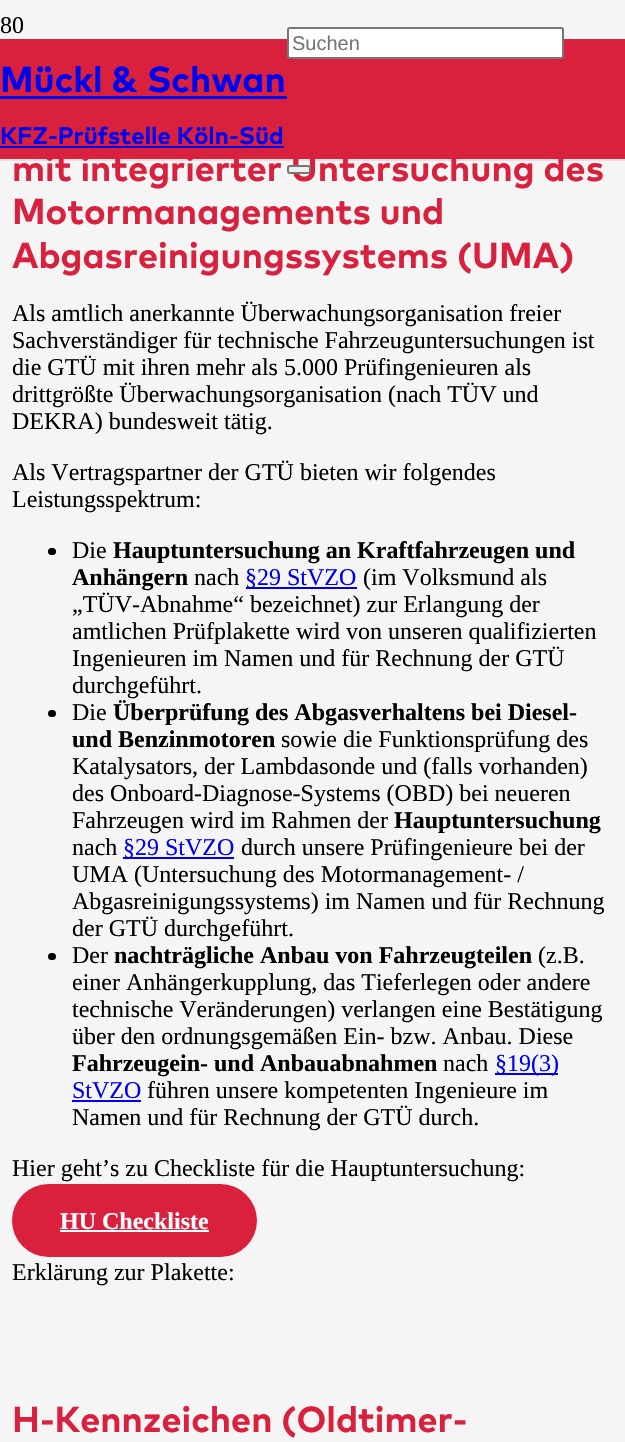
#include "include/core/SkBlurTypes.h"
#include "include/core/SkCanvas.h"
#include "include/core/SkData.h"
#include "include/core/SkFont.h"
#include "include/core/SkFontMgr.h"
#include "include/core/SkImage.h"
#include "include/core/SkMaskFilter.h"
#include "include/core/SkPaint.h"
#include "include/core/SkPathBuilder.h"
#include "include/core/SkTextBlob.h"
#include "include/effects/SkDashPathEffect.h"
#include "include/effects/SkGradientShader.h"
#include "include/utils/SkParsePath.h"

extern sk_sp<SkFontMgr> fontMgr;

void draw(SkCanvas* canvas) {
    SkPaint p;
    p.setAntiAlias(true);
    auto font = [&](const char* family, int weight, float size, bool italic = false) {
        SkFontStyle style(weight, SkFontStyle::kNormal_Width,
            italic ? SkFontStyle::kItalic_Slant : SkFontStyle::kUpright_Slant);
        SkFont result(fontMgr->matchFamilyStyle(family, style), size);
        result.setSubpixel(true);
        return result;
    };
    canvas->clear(0xFFF5F5F5);
    auto font1 = font("Liberation Serif", 400, 24);
    p.setColor(0xFF000000);
    canvas->drawString("80", 0, 33, font1, p);
    p.setColor(0x14000000);
    canvas->drawPath(SkPathBuilder().moveTo(0, 159).lineTo(0, 161).lineTo(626, 161).lineTo(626, 41).lineTo(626, 159).close().detach(), p);
    p.setColor(0xFFD9203D);
    canvas->drawRect(SkRect::MakeLTRB(0, 39, 625, 159), p);
    p.setColor(0xFFFFFFFF);
    canvas->drawRoundRect(SkRect::MakeLTRB(288, 28, 563, 58), 2, 2, p);
    p.setStyle(SkPaint::kStroke_Style);
    p.setStrokeWidth(2);
    p.setColor(0xFF767676);
    canvas->drawRoundRect(SkRect::MakeLTRB(288, 28, 563, 58), 2, 2, p);
    auto font2 = font("Liberation Sans", 400, 20);
    p.setStyle(SkPaint::kFill_Style);
    p.setColor(0xFF757575);
    canvas->drawString("Suchen", 292, 50, font2, p);
    auto font3 = font("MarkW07", 700, 36);
    p.setColor(0xFFD9203D);
    canvas->drawString("mit integrierter Untersuchung des", 12, 181, font3, p);
    p.setColor(0xFFEFEFEF);
    canvas->drawRoundRect(SkRect::MakeLTRB(288, 166, 310, 173), 2, 2, p);
    p.setStyle(SkPaint::kStroke_Style);
    p.setColor(0xFF767676);
    canvas->drawRoundRect(SkRect::MakeLTRB(288, 166, 310, 173), 2, 2, p);
    p.setStyle(SkPaint::kFill_Style);
    p.setColor(0xFF0000EE);
    canvas->drawString("Mückl & Schwan", 0, 92, font3, p);
    canvas->drawRect(SkRect::MakeLTRB(0, 96, 287, 99), p);
    auto font4 = font("MarkW07", 700, 24);
    canvas->drawString("KFZ-Prüfstelle Köln-Süd", 0, 144, font4, p);
    canvas->drawRect(SkRect::MakeLTRB(0, 146, 284, 148), p);
    p.setColor(0xFFD9203D);
    canvas->drawString("Motormanagements und", 12, 224, font3, p);
    canvas->drawString("Abgasreinigungssystems (UMA)", 12, 268, font3, p);
    p.setColor(0xFF000000);
    {
        const struct { const char* s; float x, y; } items[] = {
            {"Als amtlich anerkannte Überwachungsorganisation freier", 12, 321},
            {"Sachverständiger für technische Fahrzeuguntersuchungen ist", 12, 348},
            {"die GTÜ mit ihren mehr als 5.000 Prüfingenieuren als", 12, 375},
            {"drittgrößte Überwachungsorganisation (nach TÜV und", 12, 402},
            {"DEKRA) bundesweit tätig.", 12, 429},
            {"Als Vertragspartner der GTÜ bieten wir folgendes", 12, 480},
            {"Leistungsspektrum:", 12, 507},
        };
        for (auto [s, x, y] : items) {
            canvas->drawString(s, x, y, font1, p);
        }
    }
    canvas->drawRoundRect(SkRect::MakeLTRB(48, 548, 56, 555), 3.5f, 3.5f, p);
    canvas->drawString("Die", 72, 558, font1, p);
    auto font5 = font("Liberation Serif", 700, 24);
    canvas->drawString("Hauptuntersuchung an Kraftfahrzeugen und", 113, 558, font5, p);
    canvas->drawString("Anhängern", 72, 585, font5, p);
    canvas->drawString("nach", 194, 585, font1, p);
    p.setColor(0xFF0000EE);
    canvas->drawRect(SkRect::MakeLTRB(246, 587, 357, 589), p);
    canvas->drawString("§29 StVZO", 245, 585, font1, p);
    p.setColor(0xFF000000);
    {
        const struct { const char* s; float x, y; } items[] = {
            {"(im Volksmund als", 363, 585},
            {"„TÜV-Abnahme“ bezeichnet) zur Erlangung der", 72, 612},
            {"amtlichen Prüfplakette wird von unseren qualifizierten", 72, 639},
            {"Ingenieuren im Namen und für Rechnung der GTÜ", 72, 666},
            {"durchgeführt.", 72, 693},
        };
        for (auto [s, x, y] : items) {
            canvas->drawString(s, x, y, font1, p);
        }
    }
    canvas->drawRoundRect(SkRect::MakeLTRB(48, 710, 56, 717), 3.5f, 3.5f, p);
    canvas->drawString("Die", 72, 720, font1, p);
    canvas->drawString("Überprüfung des Abgasverhaltens bei Diesel-", 113, 720, font5, p);
    canvas->drawString("und Benzinmotoren", 72, 747, font5, p);
    {
        const struct { const char* s; float x, y; } items[] = {
            {"sowie die Funktionsprüfung des", 281, 747},
            {"Katalysators, der Lambdasonde und (falls vorhanden)", 72, 774},
            {"des Onboard-Diagnose-Systems (OBD) bei neueren", 72, 801},
            {"Fahrzeugen wird im Rahmen der", 72, 828},
        };
        for (auto [s, x, y] : items) {
            canvas->drawString(s, x, y, font1, p);
        }
    }
    canvas->drawString("Hauptuntersuchung", 394, 828, font5, p);
    canvas->drawString("nach", 72, 855, font1, p);
    p.setColor(0xFF0000EE);
    canvas->drawRect(SkRect::MakeLTRB(123, 857, 234, 859), p);
    canvas->drawString("§29 StVZO", 123, 855, font1, p);
    p.setColor(0xFF000000);
    {
        const struct { const char* s; float x, y; } items[] = {
            {"durch unsere Prüfingenieure bei der", 241, 855},
            {"UMA (Untersuchung des Motormanagement- /", 72, 882},
            {"Abgasreinigungssystems) im Namen und für Rechnung", 72, 909},
            {"der GTÜ durchgeführt.", 72, 936},
        };
        for (auto [s, x, y] : items) {
            canvas->drawString(s, x, y, font1, p);
        }
    }
    canvas->drawRoundRect(SkRect::MakeLTRB(48, 953, 56, 960), 3.5f, 3.5f, p);
    canvas->drawString("Der", 72, 963, font1, p);
    canvas->drawString("nachträgliche Anbau von Fahrzeugteilen", 114, 963, font5, p);
    {
        const struct { const char* s; float x, y; } items[] = {
            {"(z.B.", 538, 963},
            {"einer Anhängerkupplung, das Tieferlegen oder andere", 72, 990},
            {"technische Veränderungen) verlangen eine Bestätigung", 72, 1017},
            {"über den ordnungsgemäßen Ein- bzw. Anbau. Diese", 72, 1044},
        };
        for (auto [s, x, y] : items) {
            canvas->drawString(s, x, y, font1, p);
        }
    }
    canvas->drawString("Fahrzeugein- und Anbauabnahmen", 72, 1071, font5, p);
    canvas->drawString("nach", 443, 1071, font1, p);
    p.setColor(0xFF0000EE);
    canvas->drawRect(SkRect::MakeLTRB(495, 1073, 558, 1075), p);
    canvas->drawString("§19(3)", 495, 1071, font1, p);
    canvas->drawString("StVZO", 72, 1098, font1, p);
    canvas->drawRect(SkRect::MakeLTRB(72, 1100, 141, 1102), p);
    p.setColor(0xFF000000);
    {
        const struct { const char* s; float x, y; } items[] = {
            {"führen unsere kompetenten Ingenieure im", 147, 1098},
            {"Namen und für Rechnung der GTÜ durch.", 72, 1125},
            {"Hier geht’s zu Checkliste für die Hauptuntersuchung:", 12, 1176},
        };
        for (auto [s, x, y] : items) {
            canvas->drawString(s, x, y, font1, p);
        }
    }
    p.setColor(0xFFD9203D);
    canvas->drawRoundRect(SkRect::MakeLTRB(12, 1184, 257, 1257), 36.5f, 36.5f, p);
    p.setColor(0xFFFFFFFF);
    canvas->drawString("HU Checkliste", 60, 1229, font5, p);
    canvas->drawRect(SkRect::MakeLTRB(60, 1230, 209, 1232), p);
    p.setColor(0xFF000000);
    canvas->drawString("Erklärung zur Plakette:", 12, 1280, font1, p);
    p.setColor(0xFFD9203D);
    canvas->drawString("H-Kennzeichen (Oldtimer-", 12, 1432, font3, p);
}
